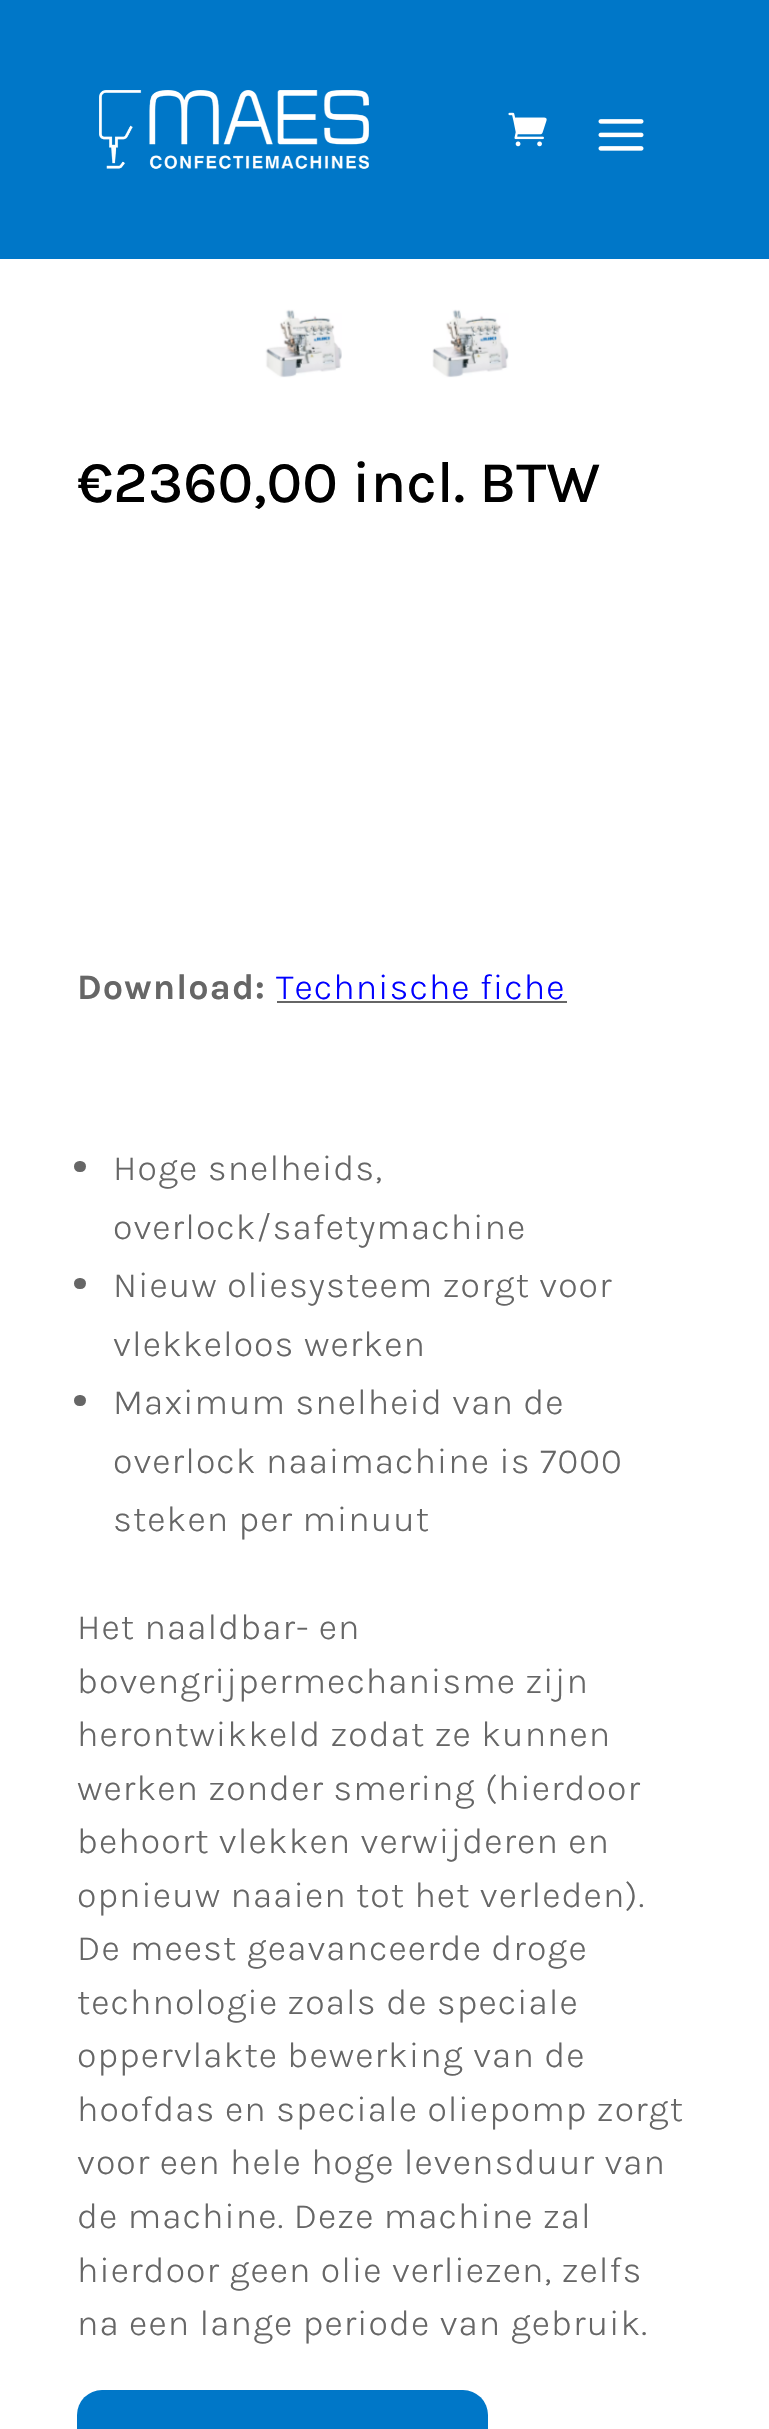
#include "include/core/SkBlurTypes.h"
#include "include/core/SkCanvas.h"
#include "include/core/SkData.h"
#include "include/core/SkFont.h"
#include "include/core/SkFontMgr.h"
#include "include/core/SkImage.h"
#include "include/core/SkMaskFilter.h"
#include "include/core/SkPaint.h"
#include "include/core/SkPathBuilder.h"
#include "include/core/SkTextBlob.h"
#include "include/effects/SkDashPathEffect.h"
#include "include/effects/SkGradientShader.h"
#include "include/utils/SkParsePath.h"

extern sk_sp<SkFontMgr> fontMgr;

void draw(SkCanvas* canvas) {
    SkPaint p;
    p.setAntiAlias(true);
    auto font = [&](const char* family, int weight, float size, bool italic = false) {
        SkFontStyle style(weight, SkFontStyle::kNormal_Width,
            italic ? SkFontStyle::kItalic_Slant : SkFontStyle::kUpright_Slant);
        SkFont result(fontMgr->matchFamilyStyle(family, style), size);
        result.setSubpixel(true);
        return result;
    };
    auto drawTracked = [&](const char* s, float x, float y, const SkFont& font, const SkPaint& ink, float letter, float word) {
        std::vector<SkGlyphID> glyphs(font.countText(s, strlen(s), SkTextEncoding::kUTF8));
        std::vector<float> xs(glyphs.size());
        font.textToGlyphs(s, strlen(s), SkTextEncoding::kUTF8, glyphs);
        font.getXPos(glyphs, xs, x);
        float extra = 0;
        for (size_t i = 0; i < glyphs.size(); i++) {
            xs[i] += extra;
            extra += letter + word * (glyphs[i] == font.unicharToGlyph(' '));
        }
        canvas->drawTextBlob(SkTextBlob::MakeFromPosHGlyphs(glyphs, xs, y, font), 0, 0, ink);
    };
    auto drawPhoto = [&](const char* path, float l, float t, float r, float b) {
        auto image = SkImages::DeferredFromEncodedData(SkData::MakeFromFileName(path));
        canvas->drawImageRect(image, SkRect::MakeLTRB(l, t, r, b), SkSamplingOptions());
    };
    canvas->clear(0xFFFFFFFF);
    p.setColor(0xFF0077C8);
    canvas->drawRect(SkRect::MakeLTRB(0, 0, 769, 259), p);
    drawPhoto("media/1.png", 99, 90, 369, 169);
    drawPhoto("media/2.png", 508, 112, 547, 147);
    drawPhoto("media/3.png", 598, 119, 644, 151);
    drawPhoto("media/4.png", 265, 309, 342, 378);
    drawPhoto("media/5.png", 432, 309, 509, 378);
    auto font1 = font("Karla", 500, 58.5f);
    p.setColor(0xFF000000);
    canvas->drawString("€2360,00 incl. BTW", 77, 502, font1, p);
    auto font2 = font("Karla", 700, 36);
    p.setColor(0xFF666666);
    drawTracked("Download:", 77, 999, font2, p, 1.1f, 0);
    auto font3 = font("Karla", 300, 36);
    p.setColor(0xFF0000FF);
    drawTracked("Technische fiche", 276, 999, font3, p, 1.1f, 0);
    p.setColor(0xFF666666);
    canvas->drawRect(SkRect::MakeLTRB(277, 1001, 567, 1003), p);
    canvas->drawRoundRect(SkRect::MakeLTRB(74, 1161, 86, 1172), 5.5f, 5.5f, p);
    drawTracked("Hoge snelheids,", 113, 1180, font3, p, 1.1f, 0);
    drawTracked("overlock/safetymachine", 113, 1239, font3, p, 1.1f, 0);
    canvas->drawRoundRect(SkRect::MakeLTRB(74, 1278, 86, 1289), 5.5f, 5.5f, p);
    drawTracked("Nieuw oliesysteem zorgt voor", 113, 1297, font3, p, 1.1f, 0);
    drawTracked("vlekkeloos werken", 113, 1356, font3, p, 1.1f, 0);
    canvas->drawRoundRect(SkRect::MakeLTRB(74, 1395, 86, 1406), 5.5f, 5.5f, p);
    {
        const struct { const char* s; float x, y; } items[] = {
            {"Maximum snelheid van de", 113, 1414},
            {"overlock naaimachine is 7000", 113, 1473},
            {"steken per minuut", 113, 1531},
            {"Het naaldbar- en", 77, 1639},
            {"bovengrijpermechanisme zijn", 77, 1693},
            {"herontwikkeld zodat ze kunnen", 77, 1746},
            {"werken zonder smering (hierdoor", 77, 1800},
            {"behoort vlekken verwijderen en", 77, 1853},
            {"opnieuw naaien tot het verleden).", 77, 1907},
            {"De meest geavanceerde droge", 77, 1960},
            {"technologie zoals de speciale", 77, 2014},
            {"oppervlakte bewerking van de", 77, 2067},
            {"hoofdas en speciale oliepomp zorgt", 77, 2121},
            {"voor een hele hoge levensduur van", 77, 2174},
            {"de machine. Deze machine zal", 77, 2228},
            {"hierdoor geen olie verliezen, zelfs", 77, 2282},
            {"na een lange periode van gebruik.", 77, 2335},
        };
        for (auto [s, x, y] : items) {
            drawTracked(s, x, y, font3, p, 1.1f, 0);
        }
    }
    p.setColor(0xFF0077C8);
    canvas->drawRoundRect(SkRect::MakeLTRB(77, 2390, 488, 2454), 25, 25, p);
}
